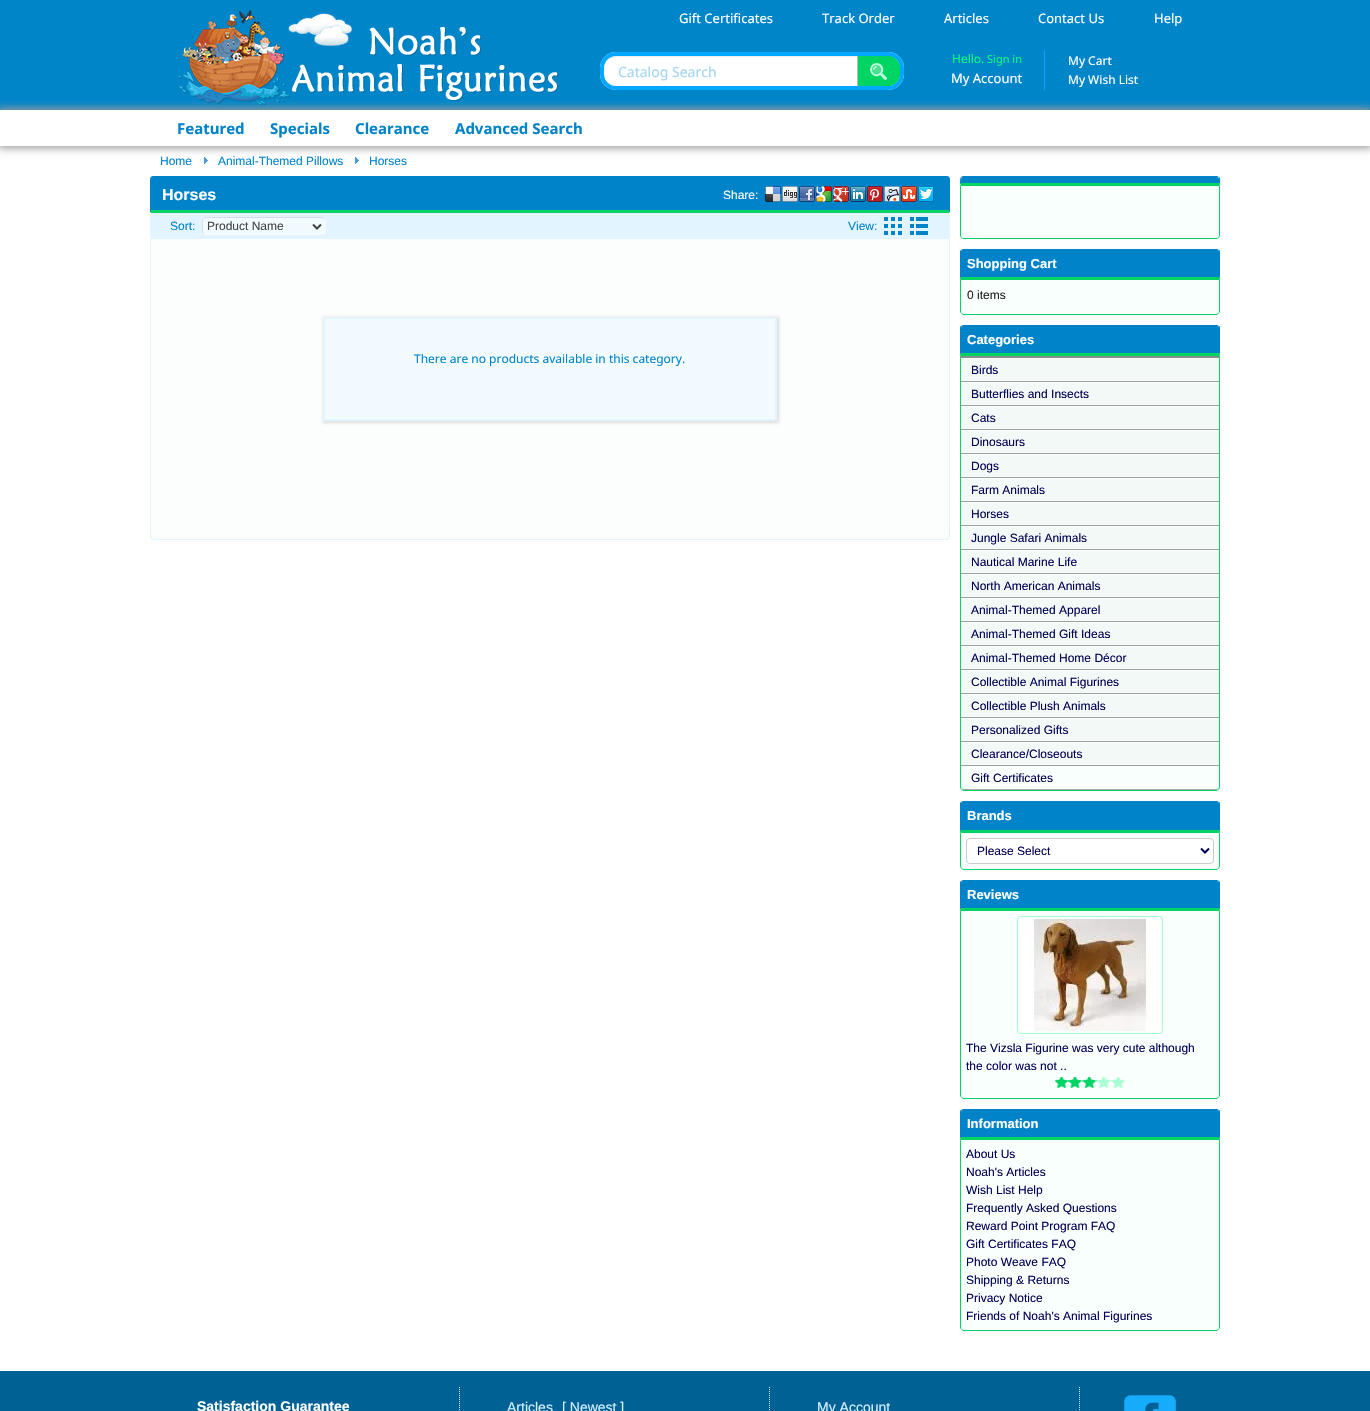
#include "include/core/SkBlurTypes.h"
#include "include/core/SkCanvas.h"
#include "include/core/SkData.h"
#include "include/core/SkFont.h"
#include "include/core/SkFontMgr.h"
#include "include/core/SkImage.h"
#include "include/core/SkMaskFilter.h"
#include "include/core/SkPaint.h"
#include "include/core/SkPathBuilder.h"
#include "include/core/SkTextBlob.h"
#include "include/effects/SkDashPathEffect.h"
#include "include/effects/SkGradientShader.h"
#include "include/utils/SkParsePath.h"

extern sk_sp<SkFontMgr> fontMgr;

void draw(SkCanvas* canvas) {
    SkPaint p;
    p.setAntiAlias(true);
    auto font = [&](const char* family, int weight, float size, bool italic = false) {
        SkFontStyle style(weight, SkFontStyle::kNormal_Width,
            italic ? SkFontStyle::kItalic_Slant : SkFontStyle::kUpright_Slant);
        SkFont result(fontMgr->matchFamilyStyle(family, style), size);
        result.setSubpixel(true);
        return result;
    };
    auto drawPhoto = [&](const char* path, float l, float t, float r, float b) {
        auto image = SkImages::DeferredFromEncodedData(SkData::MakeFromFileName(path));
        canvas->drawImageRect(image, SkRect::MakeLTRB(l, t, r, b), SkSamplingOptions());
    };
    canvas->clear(0xFFFFFFFF);
    p.setColor(0xFF0085C9);
    canvas->drawRect(SkRect::MakeLTRB(0, 0, 1370, 110), p);
    canvas->save();
    canvas->clipPath(SkPathBuilder(SkPathFillType::kEvenOdd).moveTo(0, 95).lineTo(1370, 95).lineTo(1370, 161).lineTo(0, 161).close().moveTo(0, 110).lineTo(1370, 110).lineTo(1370, 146).lineTo(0, 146).close().detach(), true);
    p.setColor(0xFF999999);
    p.setMaskFilter(SkMaskFilter::MakeBlur(kNormal_SkBlurStyle, 4));
    canvas->drawRect(SkRect::MakeLTRB(-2, 108, 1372, 148), p);
    p.setMaskFilter(nullptr);
    canvas->restore();
    drawPhoto("media/1.png", 178, 10, 559, 106);
    auto font1 = font("Noto Sans", 400, 13);
    p.setColor(0xFFFFFFFF);
    {
        const struct { const char* s; float x, y; } items[] = {
            {"Gift Certificates", 679, 23},
            {"Track Order", 822, 23},
            {"Articles", 944, 23},
            {"Contact Us", 1038, 23},
            {"Help", 1154, 23},
        };
        for (auto [s, x, y] : items) {
            canvas->drawString(s, x, y, font1, p);
        }
    }
    canvas->drawRoundRect(SkRect::MakeLTRB(600, 52, 904, 90), 16, 16, p);
    p.setColor(0xFFECECEC);
    canvas->drawPath(SkPathBuilder().moveTo(616, 57).lineTo(888, 57).cubicTo(895, 57, 900, 62, 900, 69).lineTo(900, 68).cubicTo(900, 61, 895, 56, 888, 56).lineTo(616, 56).cubicTo(609, 56, 604, 61, 604, 68).lineTo(604, 69).cubicTo(604, 62, 609, 57, 616, 57).close().detach(), p);
    p.setStyle(SkPaint::kStroke_Style);
    p.setStrokeWidth(4);
    p.setColor(0xFF04A7FF);
    canvas->drawRoundRect(SkRect::MakeLTRB(602, 54, 902, 88), 14, 14, p);
    auto font2 = font("Noto Sans", 400, 14);
    p.setStyle(SkPaint::kFill_Style);
    p.setColor(0xFFA4D5F2);
    canvas->drawString("Catalog Search", 618, 77, font2, p);
    drawPhoto("media/2.png", 857, 56, 900, 86);
    p.setColor(0xFF04A7FF);
    canvas->drawRect(SkRect::MakeLTRB(1044, 50, 1045, 90), p);
    auto font3 = font("Noto Sans", 400, 12);
    p.setColor(0xFF0AFC7A);
    canvas->drawString("Hello.", 952, 63, font3, p);
    auto font4 = font("Noto Sans", 400, 11);
    canvas->drawString("Sign in", 987, 63, font4, p);
    p.setColor(0xFFFFFFFF);
    canvas->drawString("My Account", 951, 83, font1, p);
    canvas->drawString("My Cart", 1068, 65, font3, p);
    canvas->drawString("My Wish List", 1068, 84, font3, p);
    auto font5 = font("Noto Sans", 700, 15);
    p.setColor(0xFF0083C9);
    {
        const struct { const char* s; float x, y; } items[] = {
            {"Featured", 177, 134},
            {"Specials", 270, 134},
            {"Clearance", 355, 134},
            {"Advanced Search", 455, 134},
        };
        for (auto [s, x, y] : items) {
            canvas->drawString(s, x, y, font5, p);
        }
    }
    auto font6 = font("Liberation Sans", 400, 12);
    canvas->drawString("Home", 160, 165, font6, p);
    drawPhoto("media/3.png", 204, 157, 208, 164);
    canvas->drawString("Animal-Themed Pillows", 218, 165, font6, p);
    drawPhoto("media/3.png", 355, 157, 359, 164);
    canvas->drawString("Horses", 369, 165, font6, p);
    canvas->drawPath(SkPathBuilder().moveTo(153, 176).lineTo(947, 176).cubicTo(948.5f, 176, 950, 177.5f, 950, 179).lineTo(950, 211).cubicTo(950, 212, 949, 213, 948, 213).lineTo(152, 213).cubicTo(151, 213, 150, 212, 150, 211).lineTo(150, 179).cubicTo(150, 177.5f, 151.5f, 176, 153, 176).close().detach(), p);
    p.setColor(0xFF00D462);
    canvas->drawRect(SkRect::MakeLTRB(151, 210, 949, 213), p);
    auto font7 = font("Liberation Sans", 700, 16);
    p.setColor(0xFFFFFFFF);
    canvas->drawString("Horses", 162, 200, font7, p);
    canvas->drawString("Share:", 723, 199, font6, p);
    drawPhoto("media/4.png", 765, 186, 781, 202);
    drawPhoto("media/5.png", 782, 186, 798, 202);
    drawPhoto("media/6.png", 799, 186, 815, 202);
    drawPhoto("media/7.png", 816, 186, 832, 202);
    drawPhoto("media/8.png", 833, 186, 849, 202);
    drawPhoto("media/9.png", 850, 186, 866, 202);
    drawPhoto("media/10.png", 867, 186, 883, 202);
    drawPhoto("media/11.png", 884, 186, 900, 202);
    drawPhoto("media/12.png", 901, 186, 917, 202);
    drawPhoto("media/13.png", 918, 186, 934, 202);
    p.setColor(0xFFE1F4FF);
    canvas->drawPath(SkPathBuilder().moveTo(153, 213).lineTo(947, 213).cubicTo(948.5f, 213, 950, 214.5f, 950, 216).lineTo(950, 238).cubicTo(950, 238.5f, 949.5f, 239, 949, 239).lineTo(151, 239).cubicTo(150.5f, 239, 150, 238.5f, 150, 238).lineTo(150, 216).cubicTo(150, 214.5f, 151.5f, 213, 153, 213).close().detach(), p);
    p.setColor(0xFF0083C9);
    canvas->drawString("Sort:", 170, 230, font6, p);
    p.setColor(0xFFF2FBFF);
    canvas->drawRoundRect(SkRect::MakeLTRB(202, 217, 326, 235), 4, 4, p);
    p.setStyle(SkPaint::kStroke_Style);
    p.setStrokeWidth(1);
    p.setColor(0xFFF8F8FF);
    canvas->drawPath(SkPathBuilder().moveTo(324.5f, 218.5f).cubicTo(326.5f, 220.5f, 325.5f, 225, 325.5f, 227.5f).cubicTo(325.5f, 230.5f, 326, 234.5f, 322, 234.5f).lineTo(206, 234.5f).lineTo(203.5f, 233.5f).detach(), p);
    p.setColor(0xFFD8D8F5);
    canvas->drawPath(SkPathBuilder().moveTo(203.5f, 233.5f).cubicTo(201.5f, 231.5f, 202.5f, 227, 202.5f, 224.5f).cubicTo(202.5f, 221.5f, 202, 217.5f, 206, 217.5f).lineTo(322, 217.5f).lineTo(324.5f, 218.5f).detach(), p);
    p.setStrokeWidth(2);
    p.setColor(0xFF444444);
    canvas->drawPath(SkPathBuilder().moveTo(313, 224.5f).lineTo(317, 228.5f).lineTo(321, 224.5f).detach(), p);
    p.setStyle(SkPaint::kFill_Style);
    canvas->drawString("Product Name", 207, 230, font6, p);
    p.setColor(0xFF0083C9);
    canvas->drawString("View:", 848, 230, font6, p);
    drawPhoto("media/14.png", 884, 217, 902, 235);
    drawPhoto("media/15.png", 910, 217, 928, 235);
    p.setColor(0xFFFCFDFD);
    canvas->drawPath(SkPathBuilder().moveTo(150, 239).lineTo(950, 239).lineTo(950, 535).cubicTo(950, 538, 948, 540, 945, 540).lineTo(155, 540).cubicTo(152, 540, 150, 538, 150, 535).close().detach(), p);
    p.setColor(0xFFE1F4FF);
    canvas->drawPath(SkPathBuilder(SkPathFillType::kEvenOdd).moveTo(150, 239).lineTo(950, 239).lineTo(950, 535).cubicTo(950, 538, 948, 540, 945, 540).lineTo(155, 540).cubicTo(152, 540, 150, 538, 150, 535).close().moveTo(151, 239).lineTo(949, 239).lineTo(949, 535).cubicTo(949, 537, 947, 539, 945, 539).lineTo(155, 539).cubicTo(153, 539, 151, 537, 151, 535).close().detach(), p);
    p.setColor(0xFFDDDDDD);
    p.setMaskFilter(SkMaskFilter::MakeBlur(kNormal_SkBlurStyle, 1.5f));
    canvas->drawRect(SkRect::MakeLTRB(323, 317, 779, 423), p);
    p.setMaskFilter(nullptr);
    p.setColor(0xFFF2FBFF);
    canvas->drawRect(SkRect::MakeLTRB(324, 318, 776, 420), p);
    p.setStyle(SkPaint::kStroke_Style);
    p.setColor(0xFFE1F4FF);
    canvas->drawRect(SkRect::MakeLTRB(324, 318, 776, 420), p);
    p.setStyle(SkPaint::kFill_Style);
    p.setColor(0xFF0083C9);
    canvas->drawString("There are no products available in this category.", 414, 363, font3, p);
    canvas->drawPath(SkPathBuilder().moveTo(963, 177).lineTo(1217, 177).cubicTo(1218, 177, 1219, 178, 1219, 179).lineTo(1219, 183).lineTo(961, 183).lineTo(961, 179).cubicTo(961, 178, 962, 177, 963, 177).close().detach(), p);
    canvas->drawPath(SkPathBuilder().moveTo(963, 176).lineTo(961, 177).lineTo(962, 178).lineTo(963, 177).lineTo(1218, 177).lineTo(1219, 177).lineTo(1217, 176).close().detach(), p);
    canvas->drawPath(SkPathBuilder().moveTo(1220, 184).lineTo(1220, 184.5f).lineTo(1219, 183).cubicTo(1218.5f, 181.5f, 1220, 179, 1218.5f, 177.5f).lineTo(1219, 177).cubicTo(1221, 178, 1220, 182, 1220, 184).close().detach(), p);
    p.setColor(0xFF00D462);
    canvas->drawPath(SkPathBuilder().moveTo(961, 185).lineTo(1219, 185).lineTo(1220, 185).lineTo(1219, 183).lineTo(961, 183).lineTo(960, 184).close().detach(), p);
    p.setColor(0xFF0083C9);
    canvas->drawPath(SkPathBuilder().moveTo(960, 179).lineTo(961, 177).lineTo(961.5f, 177.5f).cubicTo(960, 179, 961.5f, 181.5f, 961, 183).lineTo(960.5f, 184.5f).cubicTo(959.5f, 183, 960, 180.5f, 960, 179).close().detach(), p);
    p.setColor(0xFFF9FFFC);
    canvas->drawPath(SkPathBuilder().moveTo(960.5f, 185.5f).lineTo(1219.5f, 185.5f).lineTo(1219.5f, 235).cubicTo(1219.5f, 237, 1218, 238.5f, 1216, 238.5f).lineTo(964, 238.5f).cubicTo(962, 238.5f, 960.5f, 237, 960.5f, 235).close().detach(), p);
    p.setStyle(SkPaint::kStroke_Style);
    p.setStrokeWidth(1);
    p.setColor(0xFF00D462);
    canvas->drawPath(SkPathBuilder().moveTo(960.5f, 185.5f).lineTo(1219.5f, 185.5f).lineTo(1219.5f, 235).cubicTo(1219.5f, 237, 1218, 238.5f, 1216, 238.5f).lineTo(964, 238.5f).cubicTo(962, 238.5f, 960.5f, 237, 960.5f, 235).close().detach(), p);
    p.setStyle(SkPaint::kFill_Style);
    p.setColor(0xFF0083C9);
    canvas->drawPath(SkPathBuilder().moveTo(963, 250).lineTo(1217, 250).cubicTo(1218, 250, 1219, 251, 1219, 252).lineTo(1219, 277).lineTo(961, 277).lineTo(961, 252).cubicTo(961, 251, 962, 250, 963, 250).close().detach(), p);
    canvas->drawPath(SkPathBuilder().moveTo(963, 249).lineTo(961, 250).lineTo(962, 251).lineTo(963, 250).lineTo(1217, 250).lineTo(1218, 251).lineTo(1219, 250).lineTo(1217, 249).close().detach(), p);
    canvas->drawPath(SkPathBuilder().moveTo(1220, 278).lineTo(1220, 252).cubicTo(1220, 251, 1220, 250, 1219, 250).lineTo(1218.5f, 250.5f).cubicTo(1219, 251, 1219, 251.5f, 1219, 252).lineTo(1219, 277).lineTo(1220, 279).close().detach(), p);
    p.setColor(0xFF00D462);
    canvas->drawPath(SkPathBuilder().moveTo(961, 279).lineTo(1220, 279).lineTo(1219, 277).lineTo(961, 277).lineTo(960, 279).close().detach(), p);
    p.setColor(0xFF0083C9);
    canvas->drawPath(SkPathBuilder().moveTo(960, 252).lineTo(960, 279).lineTo(961, 277).lineTo(961, 252).cubicTo(961, 251.5f, 961, 251, 961.5f, 250.5f).lineTo(961, 250).cubicTo(960, 250, 960, 251, 960, 252).close().detach(), p);
    auto font8 = font("Liberation Sans", 700, 13);
    p.setColor(0xFFFFFFFF);
    canvas->drawString("Shopping Cart", 967, 268, font8, p);
    p.setColor(0xFFF9FFFC);
    canvas->drawPath(SkPathBuilder().moveTo(960.5f, 279.5f).lineTo(1219.5f, 279.5f).lineTo(1219.5f, 311).cubicTo(1219.5f, 313, 1218, 314.5f, 1216, 314.5f).lineTo(964, 314.5f).cubicTo(962, 314.5f, 960.5f, 313, 960.5f, 311).close().detach(), p);
    p.setStyle(SkPaint::kStroke_Style);
    p.setColor(0xFF00D462);
    canvas->drawPath(SkPathBuilder().moveTo(960.5f, 279.5f).lineTo(1219.5f, 279.5f).lineTo(1219.5f, 311).cubicTo(1219.5f, 313, 1218, 314.5f, 1216, 314.5f).lineTo(964, 314.5f).cubicTo(962, 314.5f, 960.5f, 313, 960.5f, 311).close().detach(), p);
    p.setStyle(SkPaint::kFill_Style);
    p.setColor(0xFF222222);
    canvas->drawString("0 items", 967, 299, font6, p);
    p.setColor(0xFF0083C9);
    canvas->drawPath(SkPathBuilder().moveTo(963, 326).lineTo(1217, 326).cubicTo(1218, 326, 1219, 327, 1219, 328).lineTo(1219, 353).lineTo(961, 353).lineTo(961, 328).cubicTo(961, 327, 962, 326, 963, 326).close().detach(), p);
    canvas->drawPath(SkPathBuilder().moveTo(963, 325).lineTo(961, 326).lineTo(962, 327).lineTo(963, 326).lineTo(1217, 326).lineTo(1218, 327).lineTo(1219, 326).lineTo(1217, 325).close().detach(), p);
    canvas->drawPath(SkPathBuilder().moveTo(1220, 354).lineTo(1220, 328).cubicTo(1220, 327, 1220, 326, 1219, 326).lineTo(1218.5f, 326.5f).cubicTo(1219, 327, 1219, 327.5f, 1219, 328).lineTo(1219, 353).lineTo(1220, 355).close().detach(), p);
    p.setColor(0xFF00D462);
    canvas->drawPath(SkPathBuilder().moveTo(961, 355).lineTo(1220, 355).lineTo(1219, 353).lineTo(961, 353).lineTo(960, 355).close().detach(), p);
    p.setColor(0xFF0083C9);
    canvas->drawPath(SkPathBuilder().moveTo(960, 328).lineTo(960, 355).lineTo(961, 353).lineTo(961, 328).cubicTo(961, 327.5f, 961, 327, 961.5f, 326.5f).lineTo(961, 326).cubicTo(960, 326, 960, 327, 960, 328).close().detach(), p);
    p.setColor(0xFFFFFFFF);
    canvas->drawString("Categories", 967, 344, font8, p);
    p.setColor(0xFFF9FFFC);
    canvas->drawPath(SkPathBuilder().moveTo(960.5f, 355.5f).lineTo(1219.5f, 355.5f).lineTo(1219.5f, 787).cubicTo(1219.5f, 789, 1218, 790.5f, 1216, 790.5f).lineTo(964, 790.5f).cubicTo(962, 790.5f, 960.5f, 789, 960.5f, 787).close().detach(), p);
    p.setStyle(SkPaint::kStroke_Style);
    p.setColor(0xFF00D462);
    canvas->drawPath(SkPathBuilder().moveTo(960.5f, 355.5f).lineTo(1219.5f, 355.5f).lineTo(1219.5f, 787).cubicTo(1219.5f, 789, 1218, 790.5f, 1216, 790.5f).lineTo(964, 790.5f).cubicTo(962, 790.5f, 960.5f, 789, 960.5f, 787).close().detach(), p);
    p.setStyle(SkPaint::kFill_Style);
    {
        const struct { float l, t, r, b; SkColor color; } items[] = {
            {961, 356, 1219, 358, 0xFF898C8B},
            {961, 359, 1219, 381, 0xFFF3F9F6},
            {961, 358, 1219, 359, 0xFFF8FCFA},
            {961, 381, 1219, 382, 0xFF9EA2A0},
        };
        for (auto [l, t, r, b, color] : items) {
            p.setColor(color);
            canvas->drawRect(SkRect::MakeLTRB(l, t, r, b), p);
        }
    }
    p.setColor(0xFF000055);
    canvas->drawString("Birds", 971, 374, font6, p);
    {
        const struct { float l, t, r, b; SkColor color; } items[] = {
            {961, 383, 1219, 405, 0xFFF3F9F6},
            {961, 382, 1219, 383, 0xFFF8FCFA},
            {961, 405, 1219, 406, 0xFF9EA2A0},
        };
        for (auto [l, t, r, b, color] : items) {
            p.setColor(color);
            canvas->drawRect(SkRect::MakeLTRB(l, t, r, b), p);
        }
    }
    p.setColor(0xFF000055);
    canvas->drawString("Butterflies and Insects", 971, 398, font6, p);
    {
        const struct { float l, t, r, b; SkColor color; } items[] = {
            {961, 407, 1219, 429, 0xFFF3F9F6},
            {961, 406, 1219, 407, 0xFFF8FCFA},
            {961, 429, 1219, 430, 0xFF9EA2A0},
        };
        for (auto [l, t, r, b, color] : items) {
            p.setColor(color);
            canvas->drawRect(SkRect::MakeLTRB(l, t, r, b), p);
        }
    }
    p.setColor(0xFF000055);
    canvas->drawString("Cats", 971, 422, font6, p);
    {
        const struct { float l, t, r, b; SkColor color; } items[] = {
            {961, 431, 1219, 453, 0xFFF3F9F6},
            {961, 430, 1219, 431, 0xFFF8FCFA},
            {961, 453, 1219, 454, 0xFF9EA2A0},
        };
        for (auto [l, t, r, b, color] : items) {
            p.setColor(color);
            canvas->drawRect(SkRect::MakeLTRB(l, t, r, b), p);
        }
    }
    p.setColor(0xFF000055);
    canvas->drawString("Dinosaurs", 971, 446, font6, p);
    {
        const struct { float l, t, r, b; SkColor color; } items[] = {
            {961, 455, 1219, 477, 0xFFF3F9F6},
            {961, 454, 1219, 455, 0xFFF8FCFA},
            {961, 477, 1219, 478, 0xFF9EA2A0},
        };
        for (auto [l, t, r, b, color] : items) {
            p.setColor(color);
            canvas->drawRect(SkRect::MakeLTRB(l, t, r, b), p);
        }
    }
    p.setColor(0xFF000055);
    canvas->drawString("Dogs", 971, 470, font6, p);
    {
        const struct { float l, t, r, b; SkColor color; } items[] = {
            {961, 479, 1219, 501, 0xFFF3F9F6},
            {961, 478, 1219, 479, 0xFFF8FCFA},
            {961, 501, 1219, 502, 0xFF9EA2A0},
        };
        for (auto [l, t, r, b, color] : items) {
            p.setColor(color);
            canvas->drawRect(SkRect::MakeLTRB(l, t, r, b), p);
        }
    }
    p.setColor(0xFF000055);
    canvas->drawString("Farm Animals", 971, 494, font6, p);
    {
        const struct { float l, t, r, b; SkColor color; } items[] = {
            {961, 503, 1219, 525, 0xFFF3F9F6},
            {961, 502, 1219, 503, 0xFFF8FCFA},
            {961, 525, 1219, 526, 0xFF9EA2A0},
        };
        for (auto [l, t, r, b, color] : items) {
            p.setColor(color);
            canvas->drawRect(SkRect::MakeLTRB(l, t, r, b), p);
        }
    }
    p.setColor(0xFF000055);
    canvas->drawString("Horses", 971, 518, font6, p);
    {
        const struct { float l, t, r, b; SkColor color; } items[] = {
            {961, 527, 1219, 549, 0xFFF3F9F6},
            {961, 526, 1219, 527, 0xFFF8FCFA},
            {961, 549, 1219, 550, 0xFF9EA2A0},
        };
        for (auto [l, t, r, b, color] : items) {
            p.setColor(color);
            canvas->drawRect(SkRect::MakeLTRB(l, t, r, b), p);
        }
    }
    p.setColor(0xFF000055);
    canvas->drawString("Jungle Safari Animals", 971, 542, font6, p);
    {
        const struct { float l, t, r, b; SkColor color; } items[] = {
            {961, 551, 1219, 573, 0xFFF3F9F6},
            {961, 550, 1219, 551, 0xFFF8FCFA},
            {961, 573, 1219, 574, 0xFF9EA2A0},
        };
        for (auto [l, t, r, b, color] : items) {
            p.setColor(color);
            canvas->drawRect(SkRect::MakeLTRB(l, t, r, b), p);
        }
    }
    p.setColor(0xFF000055);
    canvas->drawString("Nautical Marine Life", 971, 566, font6, p);
    {
        const struct { float l, t, r, b; SkColor color; } items[] = {
            {961, 575, 1219, 597, 0xFFF3F9F6},
            {961, 574, 1219, 575, 0xFFF8FCFA},
            {961, 597, 1219, 598, 0xFF9EA2A0},
        };
        for (auto [l, t, r, b, color] : items) {
            p.setColor(color);
            canvas->drawRect(SkRect::MakeLTRB(l, t, r, b), p);
        }
    }
    p.setColor(0xFF000055);
    canvas->drawString("North American Animals", 971, 590, font6, p);
    {
        const struct { float l, t, r, b; SkColor color; } items[] = {
            {961, 599, 1219, 621, 0xFFF3F9F6},
            {961, 598, 1219, 599, 0xFFF8FCFA},
            {961, 621, 1219, 622, 0xFF9EA2A0},
        };
        for (auto [l, t, r, b, color] : items) {
            p.setColor(color);
            canvas->drawRect(SkRect::MakeLTRB(l, t, r, b), p);
        }
    }
    p.setColor(0xFF000055);
    canvas->drawString("Animal-Themed Apparel", 971, 614, font6, p);
    {
        const struct { float l, t, r, b; SkColor color; } items[] = {
            {961, 623, 1219, 645, 0xFFF3F9F6},
            {961, 622, 1219, 623, 0xFFF8FCFA},
            {961, 645, 1219, 646, 0xFF9EA2A0},
        };
        for (auto [l, t, r, b, color] : items) {
            p.setColor(color);
            canvas->drawRect(SkRect::MakeLTRB(l, t, r, b), p);
        }
    }
    p.setColor(0xFF000055);
    canvas->drawString("Animal-Themed Gift Ideas", 971, 638, font6, p);
    {
        const struct { float l, t, r, b; SkColor color; } items[] = {
            {961, 647, 1219, 669, 0xFFF3F9F6},
            {961, 646, 1219, 647, 0xFFF8FCFA},
            {961, 669, 1219, 670, 0xFF9EA2A0},
        };
        for (auto [l, t, r, b, color] : items) {
            p.setColor(color);
            canvas->drawRect(SkRect::MakeLTRB(l, t, r, b), p);
        }
    }
    p.setColor(0xFF000055);
    canvas->drawString("Animal-Themed Home Décor", 971, 662, font6, p);
    {
        const struct { float l, t, r, b; SkColor color; } items[] = {
            {961, 671, 1219, 693, 0xFFF3F9F6},
            {961, 670, 1219, 671, 0xFFF8FCFA},
            {961, 693, 1219, 694, 0xFF9EA2A0},
        };
        for (auto [l, t, r, b, color] : items) {
            p.setColor(color);
            canvas->drawRect(SkRect::MakeLTRB(l, t, r, b), p);
        }
    }
    p.setColor(0xFF000055);
    canvas->drawString("Collectible Animal Figurines", 971, 686, font6, p);
    {
        const struct { float l, t, r, b; SkColor color; } items[] = {
            {961, 695, 1219, 717, 0xFFF3F9F6},
            {961, 694, 1219, 695, 0xFFF8FCFA},
            {961, 717, 1219, 718, 0xFF9EA2A0},
        };
        for (auto [l, t, r, b, color] : items) {
            p.setColor(color);
            canvas->drawRect(SkRect::MakeLTRB(l, t, r, b), p);
        }
    }
    p.setColor(0xFF000055);
    canvas->drawString("Collectible Plush Animals", 971, 710, font6, p);
    {
        const struct { float l, t, r, b; SkColor color; } items[] = {
            {961, 719, 1219, 741, 0xFFF3F9F6},
            {961, 718, 1219, 719, 0xFFF8FCFA},
            {961, 741, 1219, 742, 0xFF9EA2A0},
        };
        for (auto [l, t, r, b, color] : items) {
            p.setColor(color);
            canvas->drawRect(SkRect::MakeLTRB(l, t, r, b), p);
        }
    }
    p.setColor(0xFF000055);
    canvas->drawString("Personalized Gifts", 971, 734, font6, p);
    {
        const struct { float l, t, r, b; SkColor color; } items[] = {
            {961, 743, 1219, 765, 0xFFF3F9F6},
            {961, 742, 1219, 743, 0xFFF8FCFA},
            {961, 765, 1219, 766, 0xFF9EA2A0},
        };
        for (auto [l, t, r, b, color] : items) {
            p.setColor(color);
            canvas->drawRect(SkRect::MakeLTRB(l, t, r, b), p);
        }
    }
    p.setColor(0xFF000055);
    canvas->drawString("Clearance/Closeouts", 971, 758, font6, p);
    p.setColor(0xFFF9FCFB);
    canvas->drawRect(SkRect::MakeLTRB(961, 766, 1219, 767), p);
    p.setColor(0x59000000);
    canvas->drawPath(SkPathBuilder().moveTo(965, 790).lineTo(1215, 790).cubicTo(1217, 790, 1219, 788, 1219, 786).cubicTo(1219, 788, 1217, 789, 1215, 789).lineTo(965, 789).cubicTo(963, 789, 961, 788, 961, 786).cubicTo(961, 788, 963, 790, 965, 790).close().detach(), p);
    p.setColor(0xFF000055);
    canvas->drawString("Gift Certificates", 971, 782, font6, p);
    p.setColor(0xFF0083C9);
    canvas->drawPath(SkPathBuilder().moveTo(963, 802).lineTo(1217, 802).cubicTo(1218, 802, 1219, 803, 1219, 804).lineTo(1219, 830).lineTo(961, 830).lineTo(961, 804).cubicTo(961, 803, 962, 802, 963, 802).close().detach(), p);
    canvas->drawPath(SkPathBuilder().moveTo(963, 801).lineTo(961, 802).lineTo(962, 803).lineTo(963, 802).lineTo(1217, 802).lineTo(1218, 803).lineTo(1219, 802).lineTo(1217, 801).close().detach(), p);
    canvas->drawPath(SkPathBuilder().moveTo(1220, 831).lineTo(1220, 804).cubicTo(1220, 803, 1220, 802, 1219, 802).lineTo(1218.5f, 802.5f).cubicTo(1219, 803, 1219, 803.5f, 1219, 804).lineTo(1219, 830).lineTo(1220, 832).close().detach(), p);
    p.setColor(0xFF00D462);
    canvas->drawPath(SkPathBuilder().moveTo(961, 832).lineTo(1220, 832).lineTo(1219, 830).lineTo(961, 830).lineTo(960, 832).close().detach(), p);
    p.setColor(0xFF0083C9);
    canvas->drawPath(SkPathBuilder().moveTo(960, 804).lineTo(960, 832).lineTo(961, 830).lineTo(961, 804).cubicTo(961, 803.5f, 961, 803, 961.5f, 802.5f).lineTo(961, 802).cubicTo(960, 802, 960, 803, 960, 804).close().detach(), p);
    p.setColor(0xFFFFFFFF);
    canvas->drawString("Brands", 967, 820, font8, p);
    p.setColor(0xFFF9FFFC);
    canvas->drawPath(SkPathBuilder().moveTo(960.5f, 832.5f).lineTo(1219.5f, 832.5f).lineTo(1219.5f, 866).cubicTo(1219.5f, 868, 1218, 869.5f, 1216, 869.5f).lineTo(964, 869.5f).cubicTo(962, 869.5f, 960.5f, 868, 960.5f, 866).close().detach(), p);
    p.setStyle(SkPaint::kStroke_Style);
    p.setColor(0xFF00D462);
    canvas->drawPath(SkPathBuilder().moveTo(960.5f, 832.5f).lineTo(1219.5f, 832.5f).lineTo(1219.5f, 866).cubicTo(1219.5f, 868, 1218, 869.5f, 1216, 869.5f).lineTo(964, 869.5f).cubicTo(962, 869.5f, 960.5f, 868, 960.5f, 866).close().detach(), p);
    p.setStyle(SkPaint::kFill_Style);
    p.setColor(0xFFFFFFFF);
    canvas->drawRoundRect(SkRect::MakeLTRB(966.5f, 838.5f, 1213.5f, 863.5f), 3.5f, 3.5f, p);
    p.setStyle(SkPaint::kStroke_Style);
    p.setColor(0xFFCCCCCC);
    canvas->drawRoundRect(SkRect::MakeLTRB(966.5f, 838.5f, 1213.5f, 863.5f), 3.5f, 3.5f, p);
    p.setStrokeWidth(2);
    p.setColor(0xFF000055);
    canvas->drawPath(SkPathBuilder().moveTo(1201, 848.5f).lineTo(1205, 852.5f).lineTo(1209, 848.5f).detach(), p);
    p.setStyle(SkPaint::kFill_Style);
    canvas->drawString("Please Select", 977, 855, font6, p);
    p.setColor(0xFF0083C9);
    canvas->drawPath(SkPathBuilder().moveTo(963, 881).lineTo(1217, 881).cubicTo(1218, 881, 1219, 882, 1219, 883).lineTo(1219, 908).lineTo(961, 908).lineTo(961, 883).cubicTo(961, 882, 962, 881, 963, 881).close().detach(), p);
    canvas->drawPath(SkPathBuilder().moveTo(963, 880).lineTo(961, 881).lineTo(962, 882).lineTo(963, 881).lineTo(1217, 881).lineTo(1218, 882).lineTo(1219, 881).lineTo(1217, 880).close().detach(), p);
    canvas->drawPath(SkPathBuilder().moveTo(1220, 909).lineTo(1220, 883).cubicTo(1220, 882, 1220, 881, 1219, 881).lineTo(1218.5f, 881.5f).cubicTo(1219, 882, 1219, 882.5f, 1219, 883).lineTo(1219, 908).lineTo(1220, 910).close().detach(), p);
    p.setColor(0xFF00D462);
    canvas->drawPath(SkPathBuilder().moveTo(961, 910).lineTo(1220, 910).lineTo(1219, 908).lineTo(961, 908).lineTo(960, 910).close().detach(), p);
    p.setColor(0xFF0083C9);
    canvas->drawPath(SkPathBuilder().moveTo(960, 883).lineTo(960, 910).lineTo(961, 908).lineTo(961, 883).cubicTo(961, 882.5f, 961, 882, 961.5f, 881.5f).lineTo(961, 881).cubicTo(960, 881, 960, 882, 960, 883).close().detach(), p);
    p.setColor(0xFFFFFFFF);
    canvas->drawString("Reviews", 967, 899, font8, p);
    p.setColor(0xFFF9FFFC);
    canvas->drawPath(SkPathBuilder().moveTo(960.5f, 910.5f).lineTo(1219.5f, 910.5f).lineTo(1219.5f, 1095).cubicTo(1219.5f, 1097, 1218, 1098.5f, 1216, 1098.5f).lineTo(964, 1098.5f).cubicTo(962, 1098.5f, 960.5f, 1097, 960.5f, 1095).close().detach(), p);
    p.setStyle(SkPaint::kStroke_Style);
    p.setStrokeWidth(1);
    p.setColor(0xFF00D462);
    canvas->drawPath(SkPathBuilder().moveTo(960.5f, 910.5f).lineTo(1219.5f, 910.5f).lineTo(1219.5f, 1095).cubicTo(1219.5f, 1097, 1218, 1098.5f, 1216, 1098.5f).lineTo(964, 1098.5f).cubicTo(962, 1098.5f, 960.5f, 1097, 960.5f, 1095).close().detach(), p);
    p.setColor(0xFF9FFFCB);
    canvas->drawRoundRect(SkRect::MakeLTRB(1017.5f, 916.5f, 1162.5f, 1033.5f), 3.5f, 3.5f, p);
    drawPhoto("media/16.png", 1020, 919, 1160, 1031);
    p.setStyle(SkPaint::kFill_Style);
    p.setColor(0xFF000055);
    canvas->drawString("The Vizsla Figurine was very cute although", 966, 1052, font6, p);
    canvas->drawString("the color was not ..", 966, 1070, font6, p);
    drawPhoto("media/17.png", 1055, 1077, 1125, 1088);
    p.setColor(0xFF0083C9);
    canvas->drawPath(SkPathBuilder().moveTo(963, 1110).lineTo(1217, 1110).cubicTo(1218, 1110, 1219, 1111, 1219, 1112).lineTo(1219, 1137).lineTo(961, 1137).lineTo(961, 1112).cubicTo(961, 1111, 962, 1110, 963, 1110).close().detach(), p);
    canvas->drawPath(SkPathBuilder().moveTo(963, 1109).lineTo(961, 1110).lineTo(962, 1111).lineTo(963, 1110).lineTo(1217, 1110).lineTo(1218, 1111).lineTo(1219, 1110).lineTo(1217, 1109).close().detach(), p);
    canvas->drawPath(SkPathBuilder().moveTo(1220, 1138).lineTo(1220, 1112).cubicTo(1220, 1111, 1220, 1110, 1219, 1110).lineTo(1218.5f, 1110.5f).cubicTo(1219, 1111, 1219, 1111.5f, 1219, 1112).lineTo(1219, 1137).lineTo(1220, 1139).close().detach(), p);
    p.setColor(0xFF00D462);
    canvas->drawPath(SkPathBuilder().moveTo(961, 1139).lineTo(1220, 1139).lineTo(1219, 1137).lineTo(961, 1137).lineTo(960, 1139).close().detach(), p);
    p.setColor(0xFF0083C9);
    canvas->drawPath(SkPathBuilder().moveTo(960, 1112).lineTo(960, 1139).lineTo(961, 1137).lineTo(961, 1112).cubicTo(961, 1111.5f, 961, 1111, 961.5f, 1110.5f).lineTo(961, 1110).cubicTo(960, 1110, 960, 1111, 960, 1112).close().detach(), p);
    p.setColor(0xFFFFFFFF);
    canvas->drawString("Information", 967, 1128, font8, p);
    p.setColor(0xFFF9FFFC);
    canvas->drawPath(SkPathBuilder().moveTo(960.5f, 1139.5f).lineTo(1219.5f, 1139.5f).lineTo(1219.5f, 1327).cubicTo(1219.5f, 1329, 1218, 1330.5f, 1216, 1330.5f).lineTo(964, 1330.5f).cubicTo(962, 1330.5f, 960.5f, 1329, 960.5f, 1327).close().detach(), p);
    p.setStyle(SkPaint::kStroke_Style);
    p.setColor(0xFF00D462);
    canvas->drawPath(SkPathBuilder().moveTo(960.5f, 1139.5f).lineTo(1219.5f, 1139.5f).lineTo(1219.5f, 1327).cubicTo(1219.5f, 1329, 1218, 1330.5f, 1216, 1330.5f).lineTo(964, 1330.5f).cubicTo(962, 1330.5f, 960.5f, 1329, 960.5f, 1327).close().detach(), p);
    p.setStyle(SkPaint::kFill_Style);
    p.setColor(0xFF000055);
    {
        const struct { const char* s; float x, y; } items[] = {
            {"About Us", 966, 1158},
            {"Noah's Articles", 966, 1176},
            {"Wish List Help", 966, 1194},
            {"Frequently Asked Questions", 966, 1212},
            {"Reward Point Program FAQ", 966, 1230},
            {"Gift Certificates FAQ", 966, 1248},
            {"Photo Weave FAQ", 966, 1266},
            {"Shipping & Returns", 966, 1284},
            {"Privacy Notice", 966, 1302},
            {"Friends of Noah's Animal Figurines", 966, 1320},
        };
        for (auto [s, x, y] : items) {
            canvas->drawString(s, x, y, font6, p);
        }
    }
    p.setColor(0xFF006195);
    canvas->drawRect(SkRect::MakeLTRB(0, 1371, 1370, 1411), p);
    auto font9 = font("Liberation Sans", 700, 14);
    p.setColor(0xFFFFFFFF);
    canvas->drawString("Satisfaction Guarantee", 197, 1411, font9, p);
    p.setStyle(SkPaint::kStroke_Style);
    p.setColor(0xFFD2EFFF);
    p.setPathEffect(SkDashPathEffect::Make({{1, 1}}, 0));
    canvas->drawPath(SkPathBuilder().moveTo(459.5f, 1387).lineTo(459.5f, 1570).detach(), p);
    p.setPathEffect(nullptr);
    auto font10 = font("Liberation Sans", 400, 14);
    p.setStyle(SkPaint::kFill_Style);
    canvas->drawString("Articles", 507, 1412, font10, p);
    canvas->drawString("[ Newest ]", 562, 1412, font10, p);
    p.setStyle(SkPaint::kStroke_Style);
    p.setPathEffect(SkDashPathEffect::Make({{1, 1}}, 0));
    canvas->drawPath(SkPathBuilder().moveTo(769.5f, 1387).lineTo(769.5f, 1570).detach(), p);
    p.setPathEffect(nullptr);
    p.setStyle(SkPaint::kFill_Style);
    canvas->drawString("My Account", 817, 1412, font10, p);
    p.setStyle(SkPaint::kStroke_Style);
    p.setPathEffect(SkDashPathEffect::Make({{1, 1}}, 0));
    canvas->drawPath(SkPathBuilder().moveTo(1079.5f, 1387).lineTo(1079.5f, 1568).detach(), p);
    p.setPathEffect(nullptr);
    drawPhoto("media/18.png", 1124, 1395, 1176, 1411);
}
